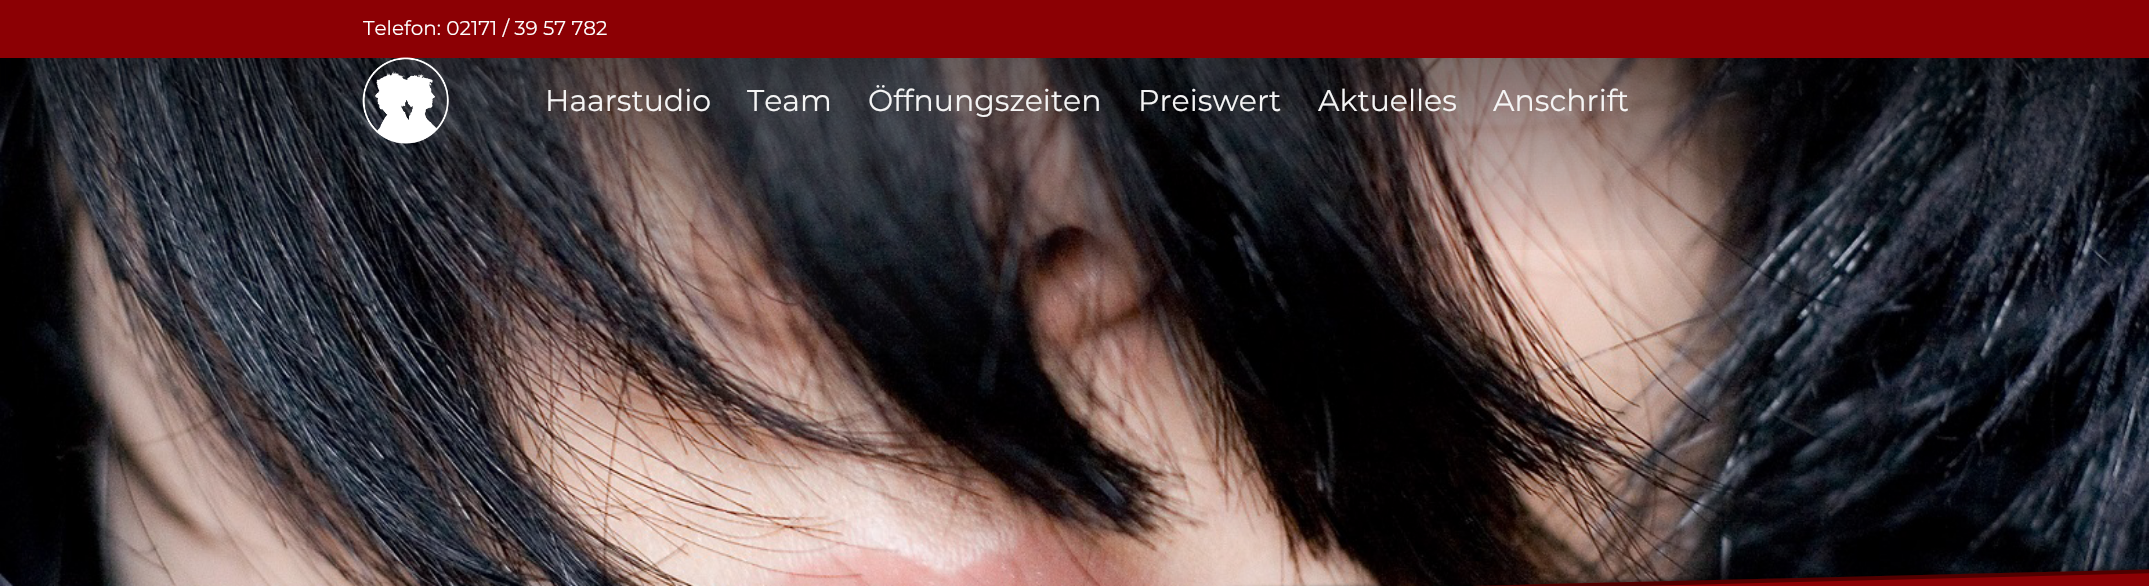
#include "include/core/SkBlurTypes.h"
#include "include/core/SkCanvas.h"
#include "include/core/SkData.h"
#include "include/core/SkFont.h"
#include "include/core/SkFontMgr.h"
#include "include/core/SkImage.h"
#include "include/core/SkMaskFilter.h"
#include "include/core/SkPaint.h"
#include "include/core/SkPathBuilder.h"
#include "include/core/SkTextBlob.h"
#include "include/effects/SkDashPathEffect.h"
#include "include/effects/SkGradientShader.h"
#include "include/utils/SkParsePath.h"

extern sk_sp<SkFontMgr> fontMgr;

void draw(SkCanvas* canvas) {
    SkPaint p;
    p.setAntiAlias(true);
    auto font = [&](const char* family, int weight, float size, bool italic = false) {
        SkFontStyle style(weight, SkFontStyle::kNormal_Width,
            italic ? SkFontStyle::kItalic_Slant : SkFontStyle::kUpright_Slant);
        SkFont result(fontMgr->matchFamilyStyle(family, style), size);
        result.setSubpixel(true);
        return result;
    };
    auto drawPhoto = [&](const char* path, float l, float t, float r, float b) {
        auto image = SkImages::DeferredFromEncodedData(SkData::MakeFromFileName(path));
        canvas->drawImageRect(image, SkRect::MakeLTRB(l, t, r, b), SkSamplingOptions());
    };
    canvas->clear(0xFFFFFFFF);
    p.setColor(0xFF8C0004);
    canvas->drawRect(SkRect::MakeLTRB(0, 0, 2149, 58), p);
    auto font1 = font("Montserrat", 400, 20);
    p.setColor(0xFFFFFFFF);
    canvas->drawString("Telefon: 02171 / 39 57 782", 363, 35, font1, p);
    drawPhoto("media/2.png", 0, 58, 2149, 586);
    drawPhoto("media/3.png", 699, 58, 1122, 354);
    {
        const SkColor colors[] = {0x99000000, 0x00000000};
        const float stops[] = {0, 1};
        const SkPoint ends[] = {{1075, 0}, {1075, 259}};
        p.setShader(SkGradientShader::MakeLinear(ends, colors, stops, 2, SkTileMode::kClamp));
        p.setAlpha(255);
    }
    canvas->drawRect(SkRect::MakeLTRB(0, 58, 2149, 250), p);
    drawPhoto("media/1.png", 362, 57, 449, 144);
    auto font2 = font("Montserrat", 400, 30);
    p.setShader(nullptr);
    p.setColor(0xFFF5F5F5);
    {
        const struct { const char* s; float x, y; } items[] = {
            {"Haarstudio", 545, 111},
            {"Team", 747, 111},
            {"Öffnungszeiten", 868, 111},
            {"Preiswert", 1138, 111},
            {"Aktuelles", 1318, 111},
            {"Anschrift", 1493, 111},
        };
        for (auto [s, x, y] : items) {
            canvas->drawString(s, x, y, font2, p);
        }
    }
    drawPhoto("media/4.png", 1227, 565, 2149, 586);
}
